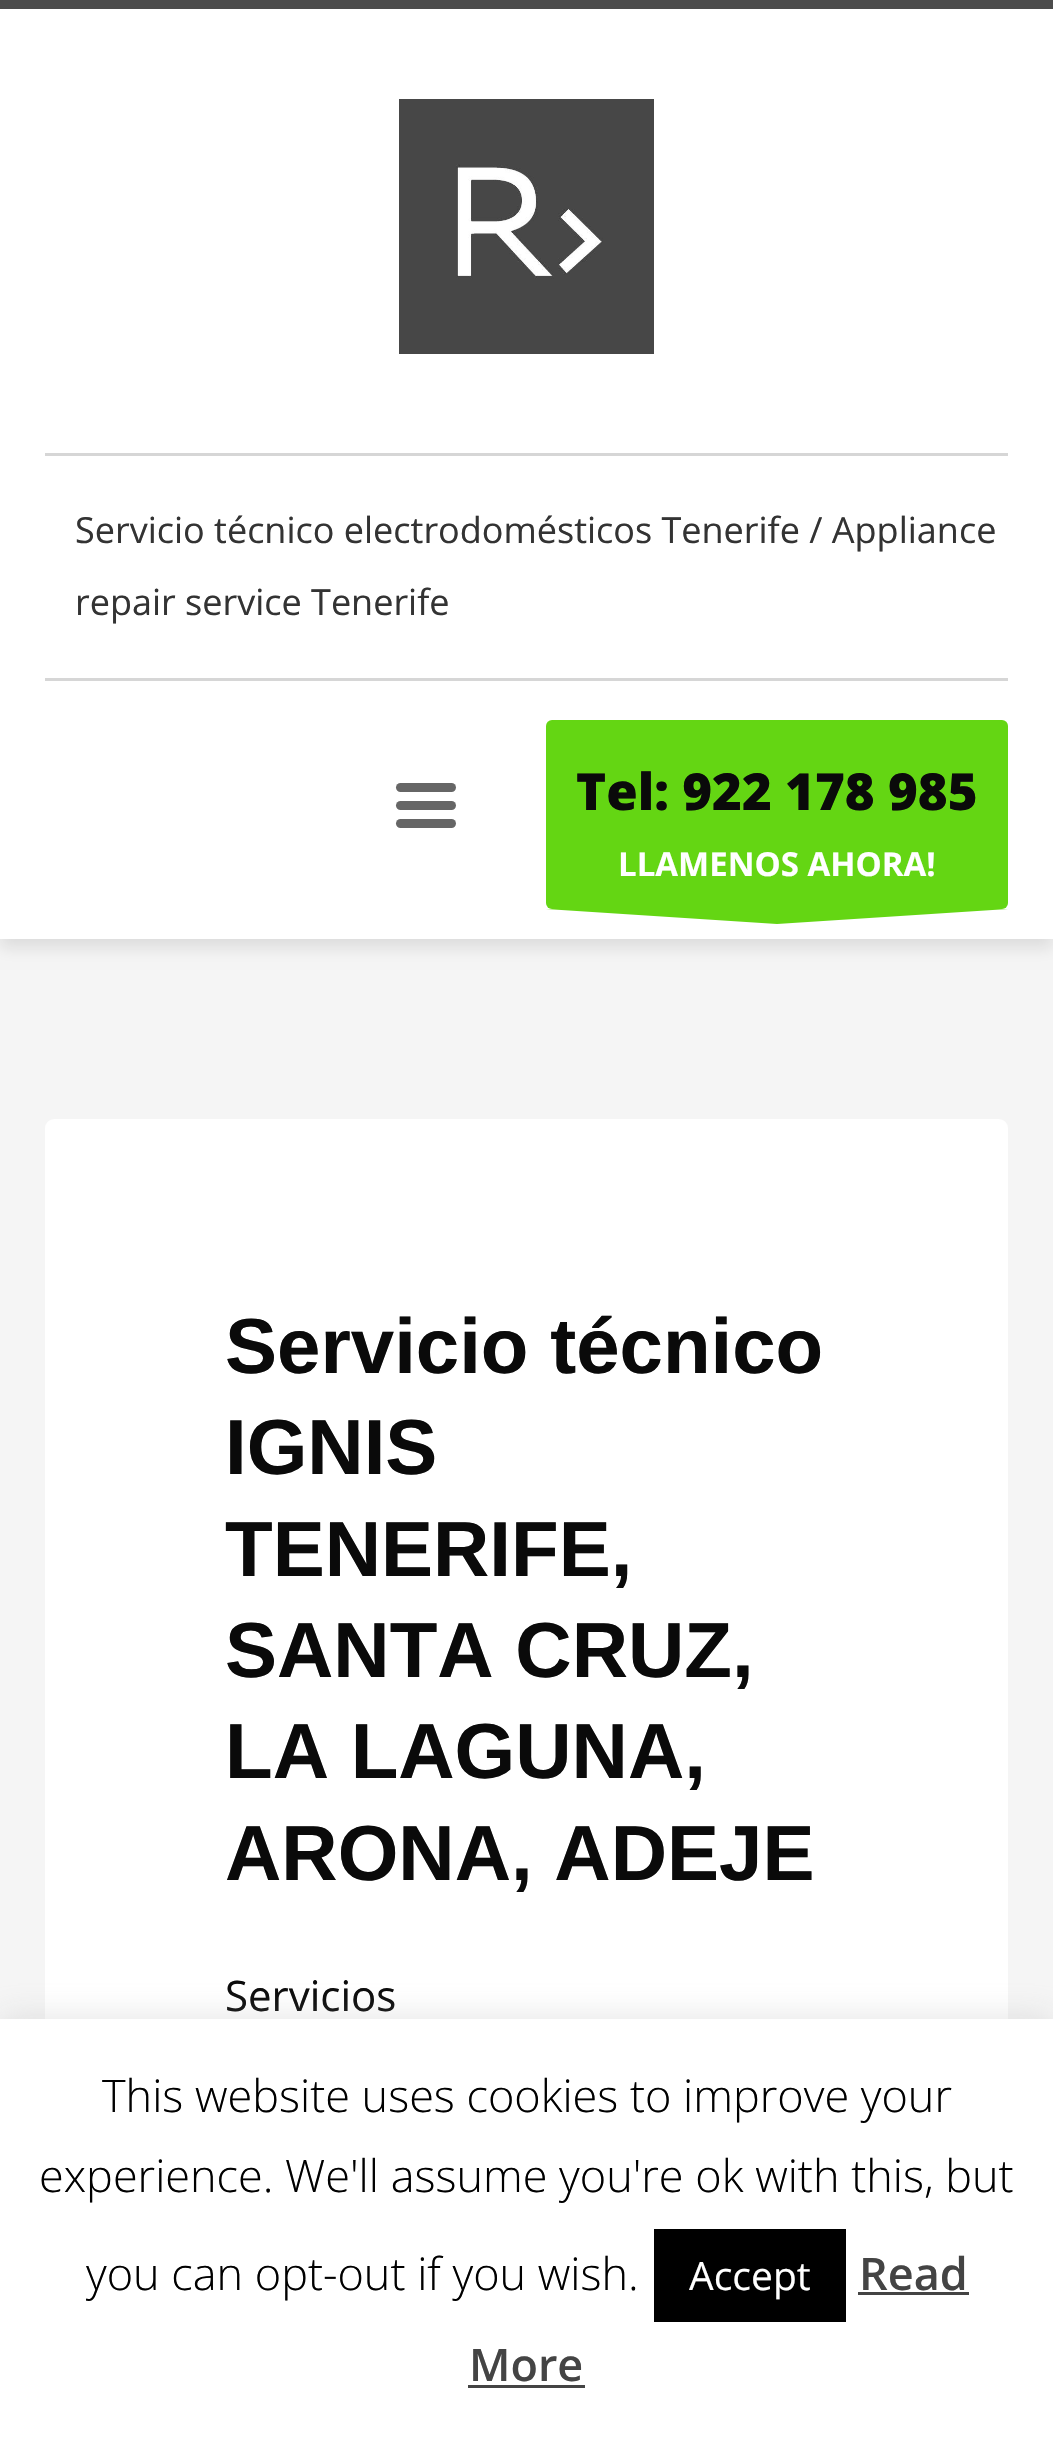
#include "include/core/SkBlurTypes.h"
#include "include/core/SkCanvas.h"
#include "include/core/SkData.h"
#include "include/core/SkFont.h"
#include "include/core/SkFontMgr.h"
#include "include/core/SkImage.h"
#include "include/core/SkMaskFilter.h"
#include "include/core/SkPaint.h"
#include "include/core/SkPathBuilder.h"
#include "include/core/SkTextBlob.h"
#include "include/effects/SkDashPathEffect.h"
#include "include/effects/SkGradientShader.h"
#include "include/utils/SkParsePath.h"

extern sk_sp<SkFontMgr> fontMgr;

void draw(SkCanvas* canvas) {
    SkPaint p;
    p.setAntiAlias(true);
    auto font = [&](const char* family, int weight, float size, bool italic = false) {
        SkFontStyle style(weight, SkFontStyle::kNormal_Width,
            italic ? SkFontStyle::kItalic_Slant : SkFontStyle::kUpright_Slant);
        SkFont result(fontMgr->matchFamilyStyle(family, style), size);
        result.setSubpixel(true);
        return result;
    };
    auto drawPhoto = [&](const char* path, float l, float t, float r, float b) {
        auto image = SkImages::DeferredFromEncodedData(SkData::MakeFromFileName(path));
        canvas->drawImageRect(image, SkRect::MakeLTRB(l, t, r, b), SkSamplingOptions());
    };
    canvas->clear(0xFFF5F5F5);
    p.setColor(0x1A000000);
    p.setMaskFilter(SkMaskFilter::MakeBlur(kNormal_SkBlurStyle, 7.5f));
    canvas->drawRect(SkRect::MakeLTRB(0, 9, 1053, 948), p);
    p.setMaskFilter(nullptr);
    p.setColor(0xFFFFFFFF);
    canvas->drawRect(SkRect::MakeLTRB(0, 9, 1053, 939), p);
    p.setColor(0xFF4C4C4C);
    canvas->drawRect(SkRect::MakeLTRB(0, 0, 1053, 9), p);
    drawPhoto("media/1.png", 399, 99, 654, 354);
    p.setColor(0xFFD6D6D6);
    canvas->drawRect(SkRect::MakeLTRB(45, 453, 1008, 456), p);
    auto font1 = font("Open Sans", 400, 36);
    p.setColor(0xFF333333);
    canvas->drawString("Servicio técnico electrodomésticos Tenerife / Appliance", 75, 543, font1, p);
    canvas->drawString("repair service Tenerife", 75, 615, font1, p);
    p.setColor(0xFFD6D6D6);
    canvas->drawRect(SkRect::MakeLTRB(45, 678, 1008, 681), p);
    p.setColor(0xFF666666);
    canvas->drawRoundRect(SkRect::MakeLTRB(396, 783, 456, 792), 4.5f, 4.5f, p);
    canvas->drawRoundRect(SkRect::MakeLTRB(396, 801, 456, 810), 4.5f, 4.5f, p);
    canvas->drawRoundRect(SkRect::MakeLTRB(396, 819, 456, 828), 4.5f, 4.5f, p);
    p.setColor(0xFF64D613);
    canvas->drawRoundRect(SkRect::MakeLTRB(546, 720, 1008, 909), 6, 6, p);
    auto font2 = font("Open Sans", 800, 51);
    p.setColor(0xFF0A0A0A);
    canvas->drawString("Tel: 922 178 985", 576, 810, font2, p);
    auto font3 = font("Open Sans", 700, 33);
    p.setColor(0xFFFFFFFF);
    canvas->drawString("LLAMENOS AHORA!", 618, 876, font3, p);
    p.setColor(0xFF64D613);
    canvas->drawPath(SkPathBuilder(SkPathFillType::kEvenOdd).moveTo(1008, 909).lineTo(777, 924).lineTo(546, 909).close().detach(), p);
    p.setColor(0xFFFFFFFF);
    canvas->drawRoundRect(SkRect::MakeLTRB(45, 1119, 1008, 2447), 9, 9, p);
    auto font4 = font("Liberation Sans", 700, 78);
    p.setColor(0xFF0A0A0A);
    {
        const struct { const char* s; float x, y; } items[] = {
            {"Servicio técnico", 225, 1373},
            {"IGNIS", 225, 1474},
            {"TENERIFE,", 225, 1576},
            {"SANTA CRUZ,", 225, 1677},
            {"LA LAGUNA,", 225, 1778},
            {"ARONA, ADEJE", 225, 1880},
        };
        for (auto [s, x, y] : items) {
            canvas->drawString(s, x, y, font4, p);
        }
    }
    auto font5 = font("Open Sans", 400, 42);
    canvas->drawString("Servicios", 225, 2011, font5, p);
    p.setColor(0x4DACABAB);
    p.setMaskFilter(SkMaskFilter::MakeBlur(kNormal_SkBlurStyle, 15));
    canvas->drawRect(SkRect::MakeLTRB(0, 2016, 1053, 2436), p);
    p.setMaskFilter(nullptr);
    p.setColor(0xFFFFFFFF);
    canvas->drawRect(SkRect::MakeLTRB(0, 2019, 1053, 2438), p);
    auto font6 = font("Open Sans", 300, 45);
    p.setColor(0xFF000000);
    {
        const struct { const char* s; float x, y; } items[] = {
            {"This website uses cookies to improve your", 102, 2112},
            {"experience. We'll assume you're ok with this, but", 39, 2192},
            {"you can opt-out if you wish.", 86, 2290},
        };
        for (auto [s, x, y] : items) {
            canvas->drawString(s, x, y, font6, p);
        }
    }
    canvas->drawRect(SkRect::MakeLTRB(654, 2229, 846, 2322), p);
    auto font7 = font("Open Sans", 400, 39);
    p.setColor(0xFFFFFFFF);
    canvas->drawString("Accept", 689, 2290, font7, p);
    auto font8 = font("Open Sans", 600, 45);
    p.setColor(0xFF444444);
    canvas->drawString("Read", 859, 2290, font8, p);
    canvas->drawRect(SkRect::MakeLTRB(858, 2292, 969, 2295), p);
    canvas->drawString("More", 469, 2381, font8, p);
    canvas->drawRect(SkRect::MakeLTRB(468, 2385, 585, 2388), p);
}
